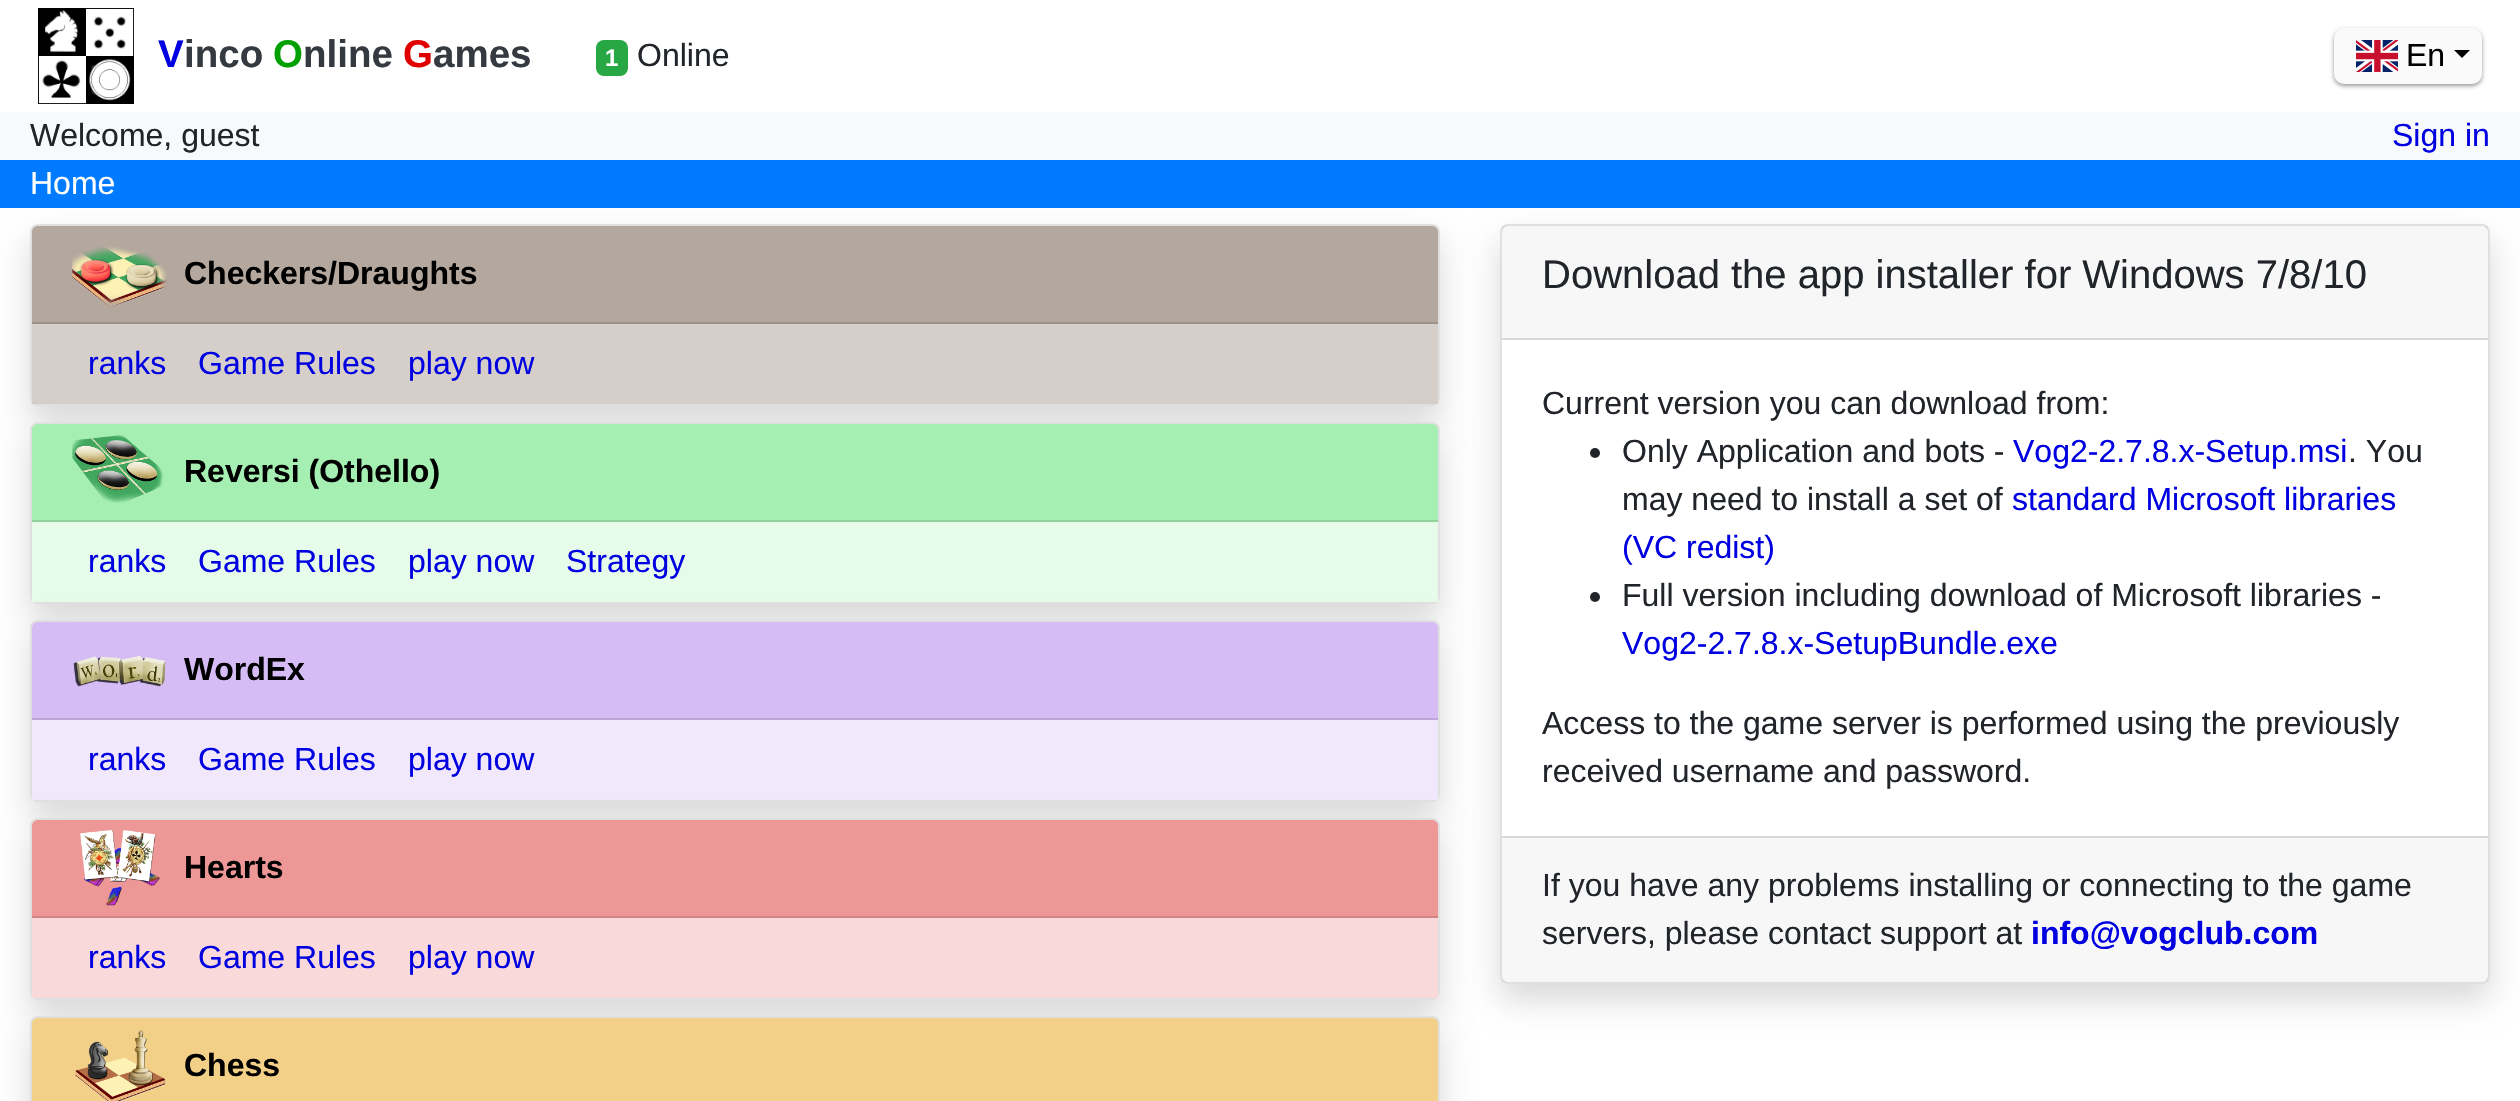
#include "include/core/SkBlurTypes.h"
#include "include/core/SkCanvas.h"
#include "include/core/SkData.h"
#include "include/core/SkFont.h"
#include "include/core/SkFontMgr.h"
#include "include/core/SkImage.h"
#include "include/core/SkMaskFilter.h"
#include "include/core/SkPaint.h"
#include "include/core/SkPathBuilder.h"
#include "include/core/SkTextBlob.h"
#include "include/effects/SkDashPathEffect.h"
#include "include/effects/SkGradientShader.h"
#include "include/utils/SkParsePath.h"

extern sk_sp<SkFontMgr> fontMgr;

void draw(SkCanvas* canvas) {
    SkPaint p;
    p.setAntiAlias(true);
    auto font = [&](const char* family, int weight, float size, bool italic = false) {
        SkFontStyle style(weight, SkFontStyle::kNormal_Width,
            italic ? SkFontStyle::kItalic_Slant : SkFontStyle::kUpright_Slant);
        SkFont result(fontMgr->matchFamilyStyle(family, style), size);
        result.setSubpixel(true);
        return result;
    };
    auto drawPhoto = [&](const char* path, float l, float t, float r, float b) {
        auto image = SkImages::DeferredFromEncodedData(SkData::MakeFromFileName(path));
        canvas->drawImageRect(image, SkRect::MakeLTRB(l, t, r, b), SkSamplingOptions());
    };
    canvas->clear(0xFFFFFFFF);
    drawPhoto("media/1.png", 38, 8, 134, 104);
    auto font1 = font("Liberation Sans", 700, 38.5f);
    p.setColor(0xFF0000E0);
    canvas->drawString("V", 158, 67, font1, p);
    p.setColor(0xFF343A40);
    canvas->drawString("inco", 184, 67, font1, p);
    p.setColor(0xFF00A000);
    canvas->drawString("O", 273, 67, font1, p);
    p.setColor(0xFF343A40);
    canvas->drawString("nline", 303, 67, font1, p);
    p.setColor(0xFFE00000);
    canvas->drawString("G", 403, 67, font1, p);
    p.setColor(0xFF343A40);
    canvas->drawString("ames", 433, 67, font1, p);
    p.setColor(0xFF28A745);
    canvas->drawRoundRect(SkRect::MakeLTRB(596, 40, 628, 76), 8, 8, p);
    auto font2 = font("Liberation Sans", 700, 24);
    p.setColor(0xFFFFFFFF);
    canvas->drawString("1", 605, 66, font2, p);
    auto font3 = font("Liberation Sans", 400, 32);
    p.setColor(0xFF212529);
    canvas->drawString("Online", 637, 66, font3, p);
    p.setColor(0x66000000);
    p.setMaskFilter(SkMaskFilter::MakeBlur(kNormal_SkBlurStyle, 2));
    canvas->drawRoundRect(SkRect::MakeLTRB(2334, 30, 2482, 86), 10, 10, p);
    p.setMaskFilter(nullptr);
    p.setColor(0xFFFAFAFA);
    canvas->drawRoundRect(SkRect::MakeLTRB(2334, 28, 2482, 84), 10, 10, p);
    drawPhoto("media/2.png", 2356, 40, 2398, 72);
    p.setColor(0xFF000000);
    canvas->drawString("En", 2406, 66, font3, p);
    canvas->drawPath(SkPathBuilder().moveTo(2454, 50).lineTo(2470, 50).lineTo(2462, 58).close().detach(), p);
    p.setColor(0xFFF8F9FA);
    canvas->drawRect(SkRect::MakeLTRB(0, 112, 2520, 160), p);
    p.setColor(0xFF212529);
    canvas->drawString("Welcome, guest", 30, 146, font3, p);
    p.setColor(0xFF0000E0);
    canvas->drawString("Sign in", 2392, 146, font3, p);
    p.setColor(0xFF007BFF);
    canvas->drawRect(SkRect::MakeLTRB(0, 160, 2520, 208), p);
    p.setColor(0xFFFFFFFF);
    canvas->drawString("Home", 30, 194, font3, p);
    p.setColor(0x26000000);
    p.setMaskFilter(SkMaskFilter::MakeBlur(kNormal_SkBlurStyle, 16));
    canvas->drawRoundRect(SkRect::MakeLTRB(30, 240, 1440, 422), 8, 8, p);
    p.setMaskFilter(nullptr);
    p.setColor(0xFFFFFFFF);
    canvas->drawRoundRect(SkRect::MakeLTRB(30, 224, 1440, 406), 8, 8, p);
    p.setStyle(SkPaint::kStroke_Style);
    p.setStrokeWidth(2);
    p.setColor(0x1F000000);
    canvas->drawRoundRect(SkRect::MakeLTRB(31, 225, 1439, 405), 7, 7, p);
    p.setStyle(SkPaint::kFill_Style);
    p.setColor(0xFFB3A79E);
    canvas->drawPath(SkPathBuilder().moveTo(38, 226).lineTo(1432, 226).cubicTo(1435.5f, 226, 1438, 228.5f, 1438, 232).lineTo(1438, 324).lineTo(32, 324).lineTo(32, 232).cubicTo(32, 228.5f, 34.5f, 226, 38, 226).close().detach(), p);
    p.setColor(0xFF9D928A);
    canvas->drawRect(SkRect::MakeLTRB(32, 322, 1438, 324), p);
    drawPhoto("media/3.png", 72, 246, 167, 307);
    auto font4 = font("Liberation Sans", 700, 32);
    p.setColor(0xFF000000);
    canvas->drawString("Checkers/Draughts", 184, 284, font4, p);
    p.setColor(0xFFD5CEC9);
    canvas->drawRect(SkRect::MakeLTRB(32, 324, 1438, 404), p);
    p.setColor(0xFF0000E0);
    {
        const struct { const char* s; float x, y; } items[] = {
            {"ranks", 88, 374},
            {"Game Rules", 198, 374},
            {"play now", 408, 374},
        };
        for (auto [s, x, y] : items) {
            canvas->drawString(s, x, y, font3, p);
        }
    }
    p.setColor(0x26000000);
    p.setMaskFilter(SkMaskFilter::MakeBlur(kNormal_SkBlurStyle, 16));
    canvas->drawRoundRect(SkRect::MakeLTRB(30, 438, 1440, 620), 8, 8, p);
    p.setMaskFilter(nullptr);
    p.setColor(0xFFFFFFFF);
    canvas->drawRoundRect(SkRect::MakeLTRB(30, 422, 1440, 604), 8, 8, p);
    p.setStyle(SkPaint::kStroke_Style);
    p.setColor(0x1F000000);
    canvas->drawRoundRect(SkRect::MakeLTRB(31, 423, 1439, 603), 7, 7, p);
    p.setStyle(SkPaint::kFill_Style);
    p.setColor(0xFFA6EFB2);
    canvas->drawPath(SkPathBuilder().moveTo(38, 424).lineTo(1432, 424).cubicTo(1435.5f, 424, 1438, 426.5f, 1438, 430).lineTo(1438, 522).lineTo(32, 522).lineTo(32, 430).cubicTo(32, 426.5f, 34.5f, 424, 38, 424).close().detach(), p);
    p.setColor(0xFF91D19C);
    canvas->drawRect(SkRect::MakeLTRB(32, 520, 1438, 522), p);
    drawPhoto("media/4.png", 72, 435, 164, 503);
    p.setColor(0xFF000000);
    canvas->drawString("Reversi (Othello)", 184, 482, font4, p);
    p.setColor(0xFFE7FBEA);
    canvas->drawRect(SkRect::MakeLTRB(32, 522, 1438, 602), p);
    p.setColor(0xFF0000E0);
    {
        const struct { const char* s; float x, y; } items[] = {
            {"ranks", 88, 572},
            {"Game Rules", 198, 572},
            {"play now", 408, 572},
            {"Strategy", 566, 572},
        };
        for (auto [s, x, y] : items) {
            canvas->drawString(s, x, y, font3, p);
        }
    }
    p.setColor(0x26000000);
    p.setMaskFilter(SkMaskFilter::MakeBlur(kNormal_SkBlurStyle, 16));
    canvas->drawRoundRect(SkRect::MakeLTRB(30, 636, 1440, 818), 8, 8, p);
    p.setMaskFilter(nullptr);
    p.setColor(0xFFFFFFFF);
    canvas->drawRoundRect(SkRect::MakeLTRB(30, 620, 1440, 802), 8, 8, p);
    p.setStyle(SkPaint::kStroke_Style);
    p.setColor(0x1F000000);
    canvas->drawRoundRect(SkRect::MakeLTRB(31, 621, 1439, 801), 7, 7, p);
    p.setStyle(SkPaint::kFill_Style);
    p.setColor(0xFFD5BCF5);
    canvas->drawPath(SkPathBuilder().moveTo(38, 622).lineTo(1432, 622).cubicTo(1435.5f, 622, 1438, 624.5f, 1438, 628).lineTo(1438, 720).lineTo(32, 720).lineTo(32, 628).cubicTo(32, 624.5f, 34.5f, 622, 38, 622).close().detach(), p);
    p.setColor(0xFFBAA5D6);
    canvas->drawRect(SkRect::MakeLTRB(32, 718, 1438, 720), p);
    drawPhoto("media/5.png", 73, 655, 166, 687);
    p.setColor(0xFF000000);
    canvas->drawString("WordEx", 184, 680, font4, p);
    p.setColor(0xFFF1E8FC);
    canvas->drawRect(SkRect::MakeLTRB(32, 720, 1438, 800), p);
    p.setColor(0xFF0000E0);
    {
        const struct { const char* s; float x, y; } items[] = {
            {"ranks", 88, 770},
            {"Game Rules", 198, 770},
            {"play now", 408, 770},
        };
        for (auto [s, x, y] : items) {
            canvas->drawString(s, x, y, font3, p);
        }
    }
    p.setColor(0x26000000);
    p.setMaskFilter(SkMaskFilter::MakeBlur(kNormal_SkBlurStyle, 16));
    canvas->drawRoundRect(SkRect::MakeLTRB(30, 834, 1440, 1016), 8, 8, p);
    p.setMaskFilter(nullptr);
    p.setColor(0xFFFFFFFF);
    canvas->drawRoundRect(SkRect::MakeLTRB(30, 818, 1440, 1000), 8, 8, p);
    p.setStyle(SkPaint::kStroke_Style);
    p.setColor(0x1F000000);
    canvas->drawRoundRect(SkRect::MakeLTRB(31, 819, 1439, 999), 7, 7, p);
    p.setStyle(SkPaint::kFill_Style);
    p.setColor(0xFFEE9797);
    canvas->drawPath(SkPathBuilder().moveTo(38, 820).lineTo(1432, 820).cubicTo(1435.5f, 820, 1438, 822.5f, 1438, 826).lineTo(1438, 918).lineTo(32, 918).lineTo(32, 826).cubicTo(32, 822.5f, 34.5f, 820, 38, 820).close().detach(), p);
    p.setColor(0xFFD08484);
    canvas->drawRect(SkRect::MakeLTRB(32, 916, 1438, 918), p);
    drawPhoto("media/6.png", 80, 830, 160, 906);
    p.setColor(0xFF000000);
    canvas->drawString("Hearts", 184, 878, font4, p);
    p.setColor(0xFFF9D9D9);
    canvas->drawRect(SkRect::MakeLTRB(32, 918, 1438, 998), p);
    p.setColor(0xFF0000E0);
    {
        const struct { const char* s; float x, y; } items[] = {
            {"ranks", 88, 968},
            {"Game Rules", 198, 968},
            {"play now", 408, 968},
        };
        for (auto [s, x, y] : items) {
            canvas->drawString(s, x, y, font3, p);
        }
    }
    p.setColor(0x26000000);
    p.setMaskFilter(SkMaskFilter::MakeBlur(kNormal_SkBlurStyle, 16));
    canvas->drawRoundRect(SkRect::MakeLTRB(30, 1032, 1440, 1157), 8, 8, p);
    p.setMaskFilter(nullptr);
    p.setColor(0xFFFFFFFF);
    canvas->drawRoundRect(SkRect::MakeLTRB(30, 1016, 1440, 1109), 8, 8, p);
    p.setStyle(SkPaint::kStroke_Style);
    p.setColor(0x1F000000);
    canvas->drawRoundRect(SkRect::MakeLTRB(31, 1017, 1439, 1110), 7, 7, p);
    p.setStyle(SkPaint::kFill_Style);
    p.setColor(0xFFF3D087);
    canvas->drawPath(SkPathBuilder().moveTo(38, 1018).lineTo(1432, 1018).cubicTo(1435.5f, 1018, 1438, 1020.5f, 1438, 1024).lineTo(1438, 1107).lineTo(32, 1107).lineTo(32, 1024).cubicTo(32, 1020.5f, 34.5f, 1018, 38, 1018).close().detach(), p);
    drawPhoto("media/7.png", 75, 1030, 166, 1101);
    p.setColor(0xFF000000);
    canvas->drawString("Chess", 184, 1076, font4, p);
    p.setColor(0x26000000);
    p.setMaskFilter(SkMaskFilter::MakeBlur(kNormal_SkBlurStyle, 16));
    canvas->drawRoundRect(SkRect::MakeLTRB(1500, 240, 2490, 1000), 8, 8, p);
    p.setMaskFilter(nullptr);
    p.setColor(0xFFFFFFFF);
    canvas->drawRoundRect(SkRect::MakeLTRB(1500, 224, 2490, 984), 8, 8, p);
    p.setStyle(SkPaint::kStroke_Style);
    p.setColor(0x1F000000);
    canvas->drawRoundRect(SkRect::MakeLTRB(1501, 225, 2489, 983), 7, 7, p);
    p.setStyle(SkPaint::kFill_Style);
    p.setColor(0x08000000);
    canvas->drawRect(SkRect::MakeLTRB(1502, 226, 2488, 338), p);
    p.setColor(0xFFD8D8D8);
    canvas->drawRect(SkRect::MakeLTRB(1502, 338, 2488, 340), p);
    auto font5 = font("Liberation Sans", 400, 40);
    p.setColor(0xFF212529);
    canvas->drawString("Download the app installer for Windows 7/8/10", 1542, 288, font5, p);
    canvas->drawString("Current version you can download from:", 1542, 414, font3, p);
    canvas->drawCircle(1595, 453, 5, p);
    canvas->drawString("Only Application and bots -", 1622, 462, font3, p);
    p.setColor(0xFF0000E0);
    canvas->drawString("Vog2-2.7.8.x-Setup.msi", 2013, 462, font3, p);
    p.setColor(0xFF212529);
    canvas->drawString(". You", 2348, 462, font3, p);
    canvas->drawString("may need to install a set of", 1622, 510, font3, p);
    p.setColor(0xFF0000E0);
    canvas->drawString("standard Microsoft libraries", 2012, 510, font3, p);
    canvas->drawString("(VC redist)", 1622, 558, font3, p);
    p.setColor(0xFF212529);
    canvas->drawCircle(1595, 597, 5, p);
    canvas->drawString("Full version including download of Microsoft libraries -", 1622, 606, font3, p);
    p.setColor(0xFF0000E0);
    canvas->drawString("Vog2-2.7.8.x-SetupBundle.exe", 1622, 654, font3, p);
    p.setColor(0xFF212529);
    canvas->drawString("Access to the game server is performed using the previously", 1542, 734, font3, p);
    canvas->drawString("received username and password.", 1542, 782, font3, p);
    p.setColor(0x08000000);
    canvas->drawRect(SkRect::MakeLTRB(1502, 838, 2488, 982), p);
    p.setColor(0xFFD8D8D8);
    canvas->drawRect(SkRect::MakeLTRB(1502, 836, 2488, 838), p);
    p.setColor(0xFF212529);
    canvas->drawString("If you have any problems installing or connecting to the game", 1542, 896, font3, p);
    canvas->drawString("servers, please contact support at", 1542, 944, font3, p);
    p.setColor(0xFF0000E0);
    canvas->drawString("info@vogclub.com", 2031, 944, font4, p);
}
